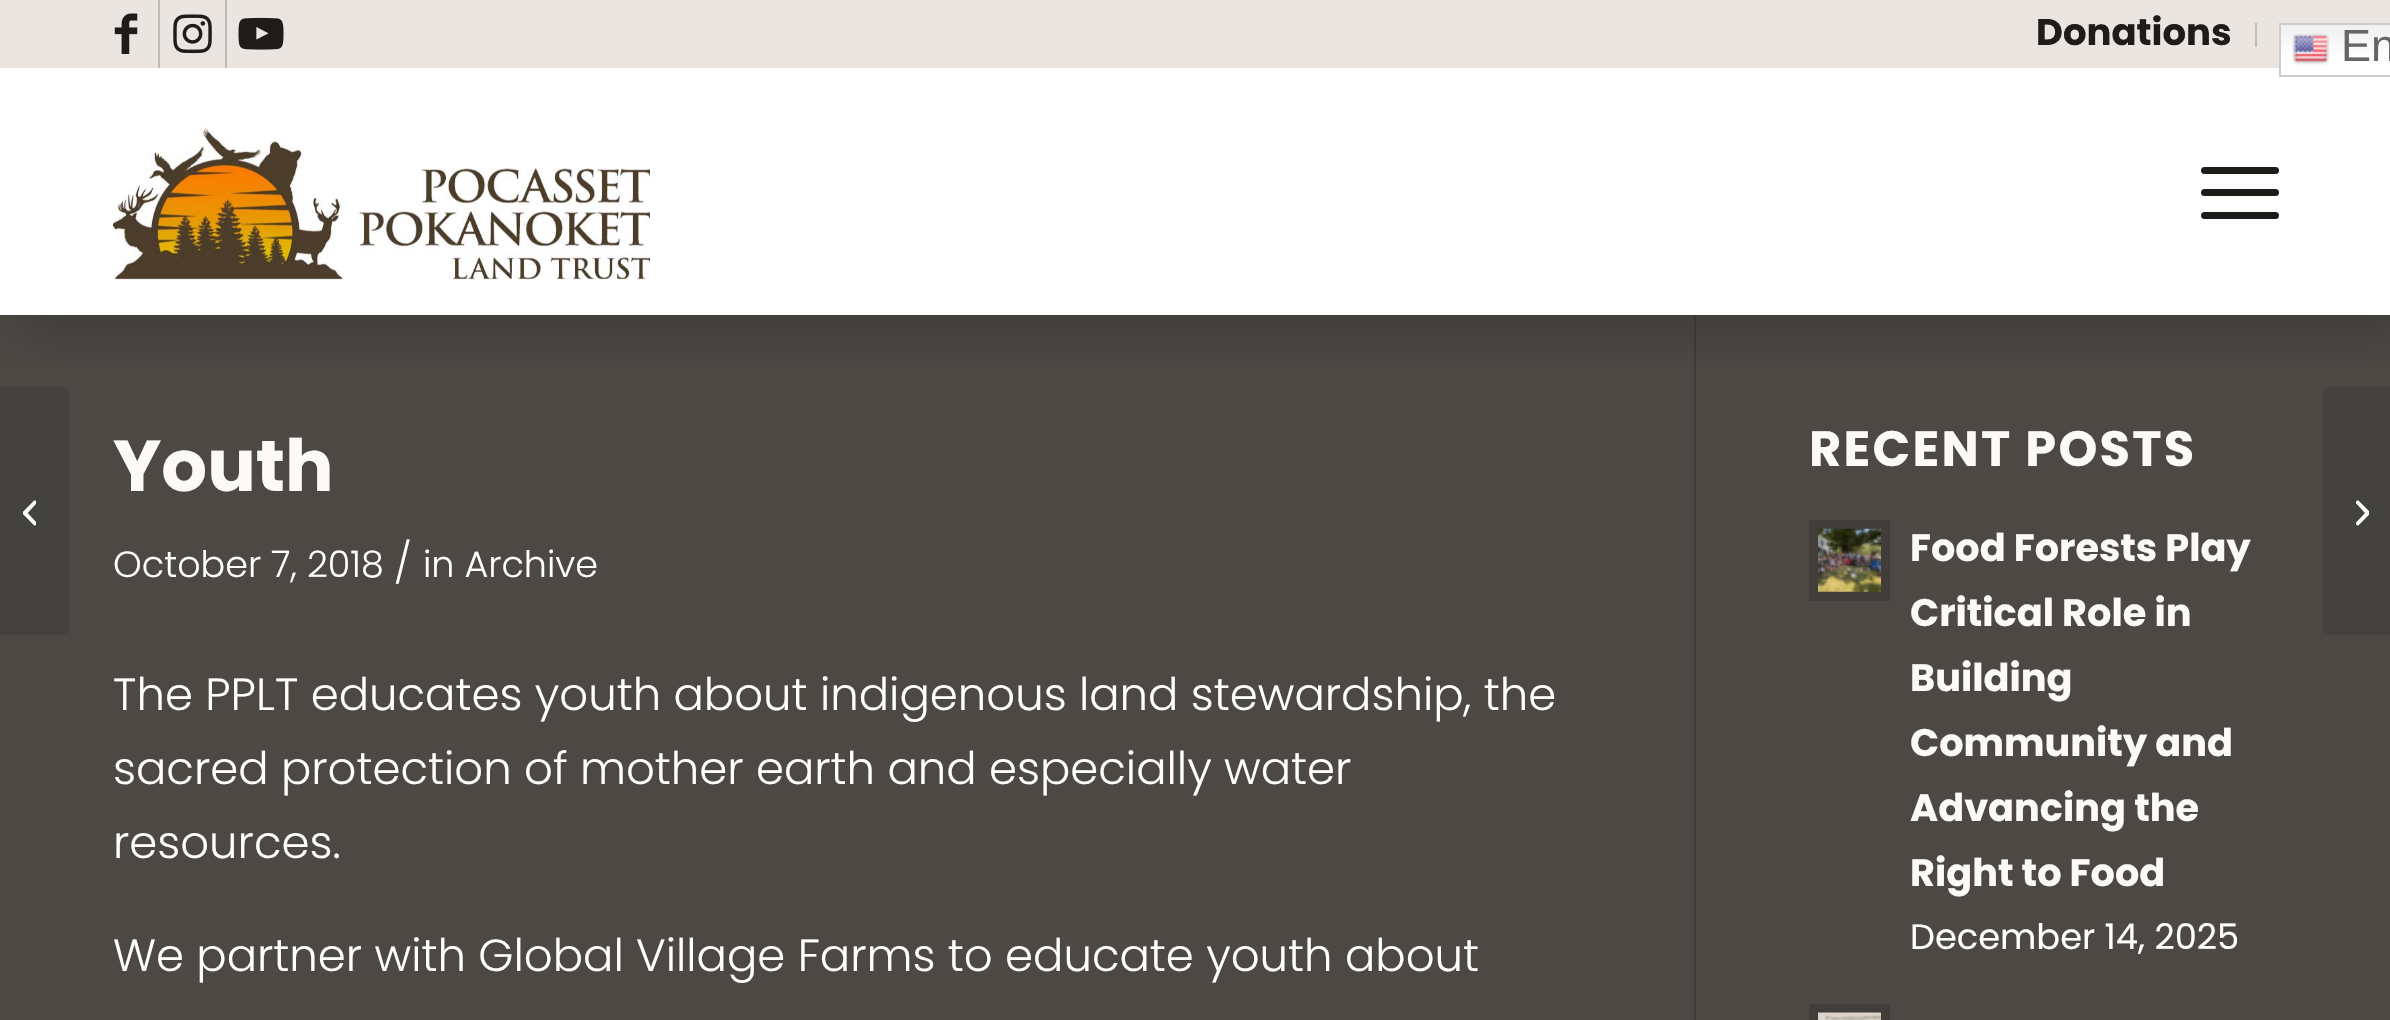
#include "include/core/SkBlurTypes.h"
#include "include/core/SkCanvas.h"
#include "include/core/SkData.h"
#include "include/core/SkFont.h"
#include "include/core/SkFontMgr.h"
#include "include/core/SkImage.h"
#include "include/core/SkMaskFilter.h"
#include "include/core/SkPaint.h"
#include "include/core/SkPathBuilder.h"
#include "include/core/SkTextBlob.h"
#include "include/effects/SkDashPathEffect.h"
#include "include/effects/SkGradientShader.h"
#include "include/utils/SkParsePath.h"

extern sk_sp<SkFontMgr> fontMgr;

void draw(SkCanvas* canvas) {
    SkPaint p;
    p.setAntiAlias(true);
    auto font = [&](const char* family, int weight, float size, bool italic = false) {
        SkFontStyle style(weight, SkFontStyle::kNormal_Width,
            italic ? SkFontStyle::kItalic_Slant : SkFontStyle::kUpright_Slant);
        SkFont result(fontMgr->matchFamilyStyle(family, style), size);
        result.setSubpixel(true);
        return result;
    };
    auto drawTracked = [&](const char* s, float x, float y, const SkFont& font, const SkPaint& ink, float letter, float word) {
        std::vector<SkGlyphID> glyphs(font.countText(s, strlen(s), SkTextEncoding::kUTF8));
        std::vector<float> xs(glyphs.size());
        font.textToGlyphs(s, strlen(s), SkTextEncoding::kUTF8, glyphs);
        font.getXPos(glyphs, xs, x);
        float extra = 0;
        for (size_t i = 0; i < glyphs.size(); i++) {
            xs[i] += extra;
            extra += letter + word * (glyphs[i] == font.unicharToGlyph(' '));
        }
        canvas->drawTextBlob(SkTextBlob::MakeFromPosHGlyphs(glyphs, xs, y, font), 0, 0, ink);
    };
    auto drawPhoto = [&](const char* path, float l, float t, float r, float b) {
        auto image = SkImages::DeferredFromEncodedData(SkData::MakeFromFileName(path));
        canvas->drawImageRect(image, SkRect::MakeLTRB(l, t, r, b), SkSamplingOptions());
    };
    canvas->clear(0xFF4C4945);
    p.setColor(0xFF403D3A);
    canvas->drawRect(SkRect::MakeLTRB(1694, 311, 1696, 1020), p);
    p.setColor(0xFFFFFFFF);
    canvas->drawRect(SkRect::MakeLTRB(0, 68, 2390, 315), p);
    canvas->save();
    canvas->clipRect(SkRect::MakeLTRB(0, 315, 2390, 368));
    p.setColor(0x33000000);
    p.setMaskFilter(SkMaskFilter::MakeBlur(kNormal_SkBlurStyle, 27));
    canvas->drawRect(SkRect::MakeLTRB(18, 86, 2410, 333), p);
    p.setMaskFilter(nullptr);
    canvas->restore();
    p.setColor(0xFF44423E);
    canvas->drawPath(SkPathBuilder().moveTo(0, 387).lineTo(61, 387).cubicTo(66, 387, 70, 391, 70, 396).lineTo(70, 626).cubicTo(70, 631, 66, 635, 61, 635).lineTo(0, 635).close().detach(), p);
    drawPhoto("media/1.png", 23, 500, 36, 526);
    drawPhoto("media/2.png", 113, 126, 650, 280);
    p.setColor(0xFF1E1C19);
    canvas->drawRoundRect(SkRect::MakeLTRB(2201, 189, 2279, 196), 3.5f, 3.5f, p);
    canvas->drawRoundRect(SkRect::MakeLTRB(2201, 167, 2279, 174), 3.5f, 3.5f, p);
    canvas->drawRoundRect(SkRect::MakeLTRB(2201, 212, 2279, 219), 3.5f, 3.5f, p);
    p.setColor(0xFFEAE5E1);
    canvas->drawRect(SkRect::MakeLTRB(0, 0, 2390, 68), p);
    p.setColor(0xFFBFBBB6);
    canvas->drawRect(SkRect::MakeLTRB(158, 0, 160, 68), p);
    drawPhoto("media/3.png", 114, 13, 138, 54);
    canvas->drawRect(SkRect::MakeLTRB(225, 0, 227, 68), p);
    drawPhoto("media/4.png", 173, 14, 212, 54);
    drawPhoto("media/5.png", 238, 17, 284, 50);
    canvas->drawRect(SkRect::MakeLTRB(2255, 23, 2257, 47), p);
    auto font1 = font("Poppins", 700, 37);
    p.setColor(0xFF1E1C19);
    canvas->drawString("Donations", 2036, 45, font1, p);
    {
        const SkColor colors[] = {0xFFEFEFEF, 0xFFFFFFFF};
        const float stops[] = {0, 0.7f};
        const SkPoint ends[] = {{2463, 22}, {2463, 77}};
        p.setShader(SkGradientShader::MakeLinear(ends, colors, stops, 2, SkTileMode::kClamp));
        p.setAlpha(255);
    }
    canvas->drawRect(SkRect::MakeLTRB(2281, 25, 2390, 68), p);
    p.setStyle(SkPaint::kStroke_Style);
    p.setStrokeWidth(2);
    p.setShader(nullptr);
    p.setColor(0xFFCCCCCC);
    canvas->drawRect(SkRect::MakeLTRB(2280, 24, 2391, 76), p);
    drawPhoto("media/6.png", 2292, 33, 2329, 65);
    auto font2 = font("Liberation Sans", 400, 45);
    p.setStyle(SkPaint::kFill_Style);
    p.setColor(0xFF666666);
    canvas->drawString("En", 2341, 61, font2, p);
    auto font3 = font("Poppins", 700, 72);
    p.setColor(0xFFFCFAF7);
    canvas->drawString("Youth", 113, 491, font3, p);
    auto font4 = font("Poppins", 300, 36.5f);
    p.setColor(0xFFFFFFFF);
    canvas->drawString("October 7, 2018", 113, 577, font4, p);
    auto font5 = font("Poppins", 300, 40);
    canvas->drawString("/", 394, 577, font5, p);
    canvas->drawString("in Archive", 423, 577, font4, p);
    auto font6 = font("Poppins", 300, 45);
    {
        const struct { const char* s; float x, y; } items[] = {
            {"The PPLT educates youth about indigenous land stewardship, the", 113, 710},
            {"sacred protection of mother earth and especially water", 113, 784},
            {"resources.", 113, 858},
            {"We partner with Global Village Farms to educate youth about", 113, 971},
        };
        for (auto [s, x, y] : items) {
            canvas->drawString(s, x, y, font6, p);
        }
    }
    auto font7 = font("Poppins", 700, 49.5f);
    p.setColor(0xFFFCFAF7);
    drawTracked("RECENT POSTS", 1809, 466, font7, p, 2.25f, 0);
    p.setColor(0xFF403D3A);
    canvas->drawRect(SkRect::MakeLTRB(1809, 520, 1890, 601), p);
    drawPhoto("media/7.png", 1818, 528, 1881, 592);
    auto font8 = font("Poppins", 700, 38.25f);
    p.setColor(0xFFFCFAF7);
    {
        const struct { const char* s; float x, y; } items[] = {
            {"Food Forests Play", 1910, 561},
            {"Critical Role in", 1910, 626},
            {"Building", 1910, 691},
            {"Community and", 1910, 756},
            {"Advancing the", 1910, 821},
            {"Right to Food", 1910, 886},
        };
        for (auto [s, x, y] : items) {
            canvas->drawString(s, x, y, font8, p);
        }
    }
    auto font9 = font("Poppins", 400, 35.25f);
    p.setColor(0xFFFFFFFF);
    canvas->drawString("December 14, 2025", 1910, 949, font9, p);
    p.setColor(0xFF403D3A);
    canvas->drawRect(SkRect::MakeLTRB(1809, 1004, 1890, 1020), p);
    drawPhoto("media/8.png", 1818, 1012, 1881, 1020);
    p.setColor(0xFF44423E);
    canvas->drawPath(SkPathBuilder().moveTo(2331, 387).lineTo(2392, 387).lineTo(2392, 635).lineTo(2331, 635).cubicTo(2326, 635, 2322, 631, 2322, 626).lineTo(2322, 396).cubicTo(2322, 391, 2326, 387, 2331, 387).close().detach(), p);
    drawPhoto("media/9.png", 2356, 500, 2369, 526);
}
